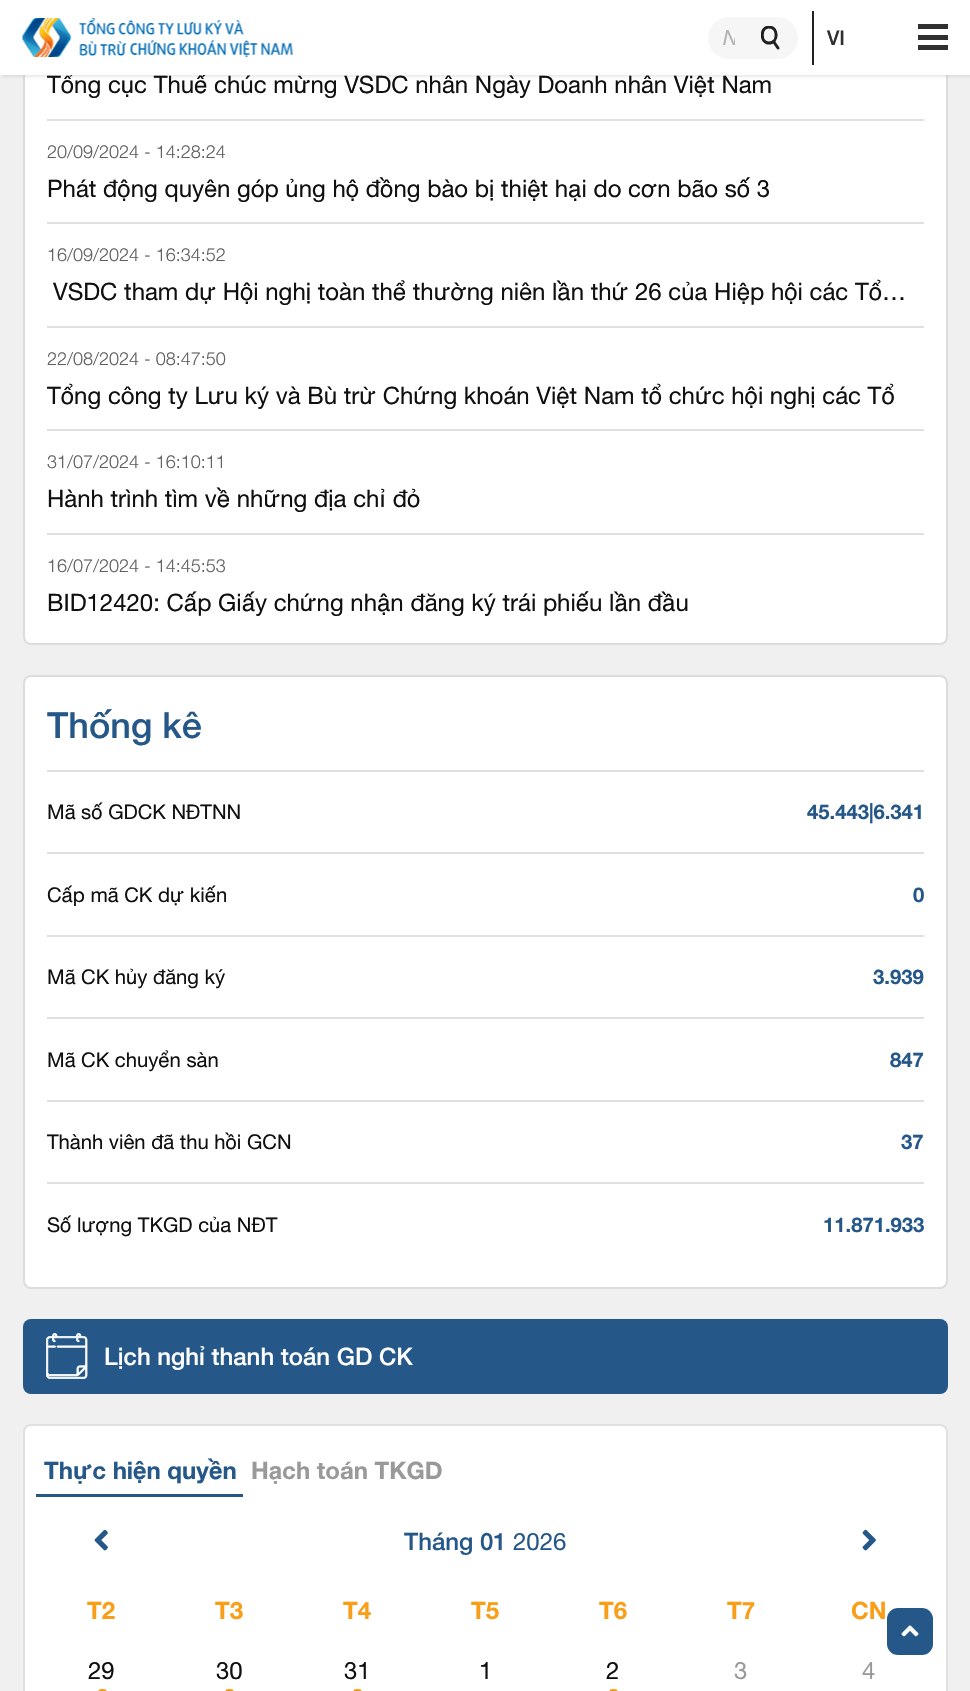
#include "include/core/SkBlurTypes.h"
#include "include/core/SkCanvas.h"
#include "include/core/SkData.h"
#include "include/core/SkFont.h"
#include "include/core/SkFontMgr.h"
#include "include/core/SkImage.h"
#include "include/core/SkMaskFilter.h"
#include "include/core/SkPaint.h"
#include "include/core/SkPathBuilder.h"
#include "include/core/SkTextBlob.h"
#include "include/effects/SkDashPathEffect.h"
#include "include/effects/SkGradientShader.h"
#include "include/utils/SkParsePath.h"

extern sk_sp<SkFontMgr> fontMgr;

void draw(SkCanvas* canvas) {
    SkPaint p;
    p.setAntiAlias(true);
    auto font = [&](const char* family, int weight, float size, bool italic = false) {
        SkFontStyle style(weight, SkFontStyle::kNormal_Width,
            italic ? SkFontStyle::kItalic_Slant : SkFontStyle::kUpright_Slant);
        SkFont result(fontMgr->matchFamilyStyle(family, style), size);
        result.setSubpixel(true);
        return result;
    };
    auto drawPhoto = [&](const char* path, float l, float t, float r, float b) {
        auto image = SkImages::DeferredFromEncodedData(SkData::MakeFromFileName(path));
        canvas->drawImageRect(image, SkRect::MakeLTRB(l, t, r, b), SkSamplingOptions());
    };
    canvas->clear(0xFFF0F0F0);
    p.setColor(0xFFFFFFFF);
    canvas->drawRoundRect(SkRect::MakeLTRB(24, -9, 947, 644), 7, 7, p);
    p.setStyle(SkPaint::kStroke_Style);
    p.setStrokeWidth(2);
    p.setColor(0xFFDCDCDC);
    canvas->drawRoundRect(SkRect::MakeLTRB(24, -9, 947, 644), 7, 7, p);
    p.setStyle(SkPaint::kFill_Style);
    p.setColor(0x14000000);
    p.setMaskFilter(SkMaskFilter::MakeBlur(kNormal_SkBlurStyle, 1));
    canvas->drawRect(SkRect::MakeLTRB(2, 2, 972, 77), p);
    p.setMaskFilter(nullptr);
    auto font1 = font("Helvetica Neue", 400, 24);
    p.setColor(0xFF101010);
    canvas->drawString("Tổng cục Thuế chúc mừng VSDC nhân Ngày Doanh nhân Việt Nam", 47, 93, font1, p);
    p.setColor(0xFFFFFFFF);
    canvas->drawRect(SkRect::MakeLTRB(0, 0, 970, 75), p);
    drawPhoto("media/1.png", 22, 18, 293, 57);
    p.setColor(0xFFF6F6F6);
    canvas->drawRoundRect(SkRect::MakeLTRB(708, 17, 798, 59), 21, 21, p);
    canvas->save();
    canvas->clipRect(SkRect::MakeLTRB(723, 26, 735, 50));
    auto font2 = font("Helvetica Neue", 400, 21, true);
    p.setColor(0xFFB3B3B3);
    canvas->drawString("N", 723, 45, font2, p);
    canvas->restore();
    canvas->save();
    canvas->clipRect(SkRect::MakeLTRB(761, 26, 780, 50));
    p.setStyle(SkPaint::kStroke_Style);
    p.setStrokeWidth(3);
    p.setStrokeCap(SkPaint::kRound_Cap);
    p.setStrokeJoin(SkPaint::kRound_Join);
    p.setColor(0xFF202020);
    canvas->drawPath(SkPathBuilder().moveTo(769, 43).cubicTo(778.5f, 43, 778.5f, 27, 769, 27).cubicTo(760, 27, 760, 43, 769, 43).close().detach(), p);
    canvas->restore();
    canvas->drawPath(SkPathBuilder().moveTo(773.5f, 41.5f).lineTo(778, 48).detach(), p);
    p.setStyle(SkPaint::kFill_Style);
    canvas->drawRect(SkRect::MakeLTRB(812, 11, 814, 65), p);
    auto font3 = font("Helvetica Neue", 500, 20.25f);
    p.setColor(0xFF303030);
    canvas->drawString("VI", 827, 45, font3, p);
    {
        const struct { float l, t, r, b; SkColor color; } items[] = {
            {918, 24, 948, 29, 0xFF303030},
            {918, 35, 948, 40, 0xFF303030},
            {918, 45, 948, 50, 0xFF303030},
            {47, 119, 924, 121, 0xFFE0E0E0},
            {47, 222, 924, 224, 0xFFE0E0E0},
        };
        for (auto [l, t, r, b, color] : items) {
            p.setColor(color);
            canvas->drawRect(SkRect::MakeLTRB(l, t, r, b), p);
        }
    }
    auto font4 = font("Helvetica Neue", 300, 18);
    p.setColor(0xFF606060);
    canvas->drawString("20/09/2024 - 14:28:24", 47, 158, font4, p);
    p.setColor(0xFF101010);
    canvas->drawString("Phát động quyên góp ủng hộ đồng bào bị thiệt hại do cơn bão số 3", 47, 197, font1, p);
    p.setColor(0xFFE0E0E0);
    canvas->drawRect(SkRect::MakeLTRB(47, 326, 924, 328), p);
    p.setColor(0xFF606060);
    canvas->drawString("16/09/2024 - 16:34:52", 47, 261, font4, p);
    p.setColor(0xFF101010);
    canvas->drawString("VSDC tham dự Hội nghị toàn thể thường niên lần thứ 26 của Hiệp hội các Tổ…", 53, 300, font1, p);
    p.setColor(0xFFE0E0E0);
    canvas->drawRect(SkRect::MakeLTRB(47, 429, 924, 431), p);
    p.setColor(0xFF606060);
    canvas->drawString("22/08/2024 - 08:47:50", 47, 365, font4, p);
    p.setColor(0xFF101010);
    canvas->drawString("Tổng công ty Lưu ký và Bù trừ Chứng khoán Việt Nam tổ chức hội nghị các Tổ", 47, 404, font1, p);
    p.setColor(0xFFE0E0E0);
    canvas->drawRect(SkRect::MakeLTRB(47, 533, 924, 535), p);
    p.setColor(0xFF606060);
    canvas->drawString("31/07/2024 - 16:10:11", 47, 468, font4, p);
    p.setColor(0xFF101010);
    canvas->drawString("Hành trình tìm về những địa chỉ đỏ", 47, 507, font1, p);
    p.setColor(0xFF606060);
    canvas->drawString("16/07/2024 - 14:45:53", 47, 572, font4, p);
    p.setColor(0xFF101010);
    canvas->drawString("BID12420: Cấp Giấy chứng nhận đăng ký trái phiếu lần đầu", 47, 611, font1, p);
    p.setColor(0xFFFFFFFF);
    canvas->drawRoundRect(SkRect::MakeLTRB(24, 676, 947, 1288), 7, 7, p);
    p.setStyle(SkPaint::kStroke_Style);
    p.setStrokeWidth(2);
    p.setStrokeCap(SkPaint::kButt_Cap);
    p.setStrokeJoin(SkPaint::kMiter_Join);
    p.setColor(0xFFDCDCDC);
    canvas->drawRoundRect(SkRect::MakeLTRB(24, 676, 947, 1288), 7, 7, p);
    p.setStyle(SkPaint::kFill_Style);
    p.setColor(0xFFE0E0E0);
    canvas->drawRect(SkRect::MakeLTRB(47, 770, 924, 772), p);
    auto font5 = font("Helvetica Neue", 500, 36);
    p.setColor(0xFF255888);
    canvas->drawString("Thống kê", 47, 738, font5, p);
    p.setColor(0xFFE0E0E0);
    canvas->drawRect(SkRect::MakeLTRB(47, 852, 924, 854), p);
    auto font6 = font("Helvetica Neue", 400, 20.25f);
    p.setColor(0xFF101010);
    canvas->drawString("Mã số GDCK NĐTNN", 47, 819, font6, p);
    auto font7 = font("Helvetica Neue", 700, 20.25f);
    p.setColor(0xFF255888);
    canvas->drawString("45.443|6.341", 807, 819, font7, p);
    p.setColor(0xFFE0E0E0);
    canvas->drawRect(SkRect::MakeLTRB(47, 935, 924, 937), p);
    p.setColor(0xFF101010);
    canvas->drawString("Cấp mã CK dự kiến", 47, 902, font6, p);
    p.setColor(0xFF255888);
    canvas->drawString("0", 913, 902, font7, p);
    p.setColor(0xFFE0E0E0);
    canvas->drawRect(SkRect::MakeLTRB(47, 1017, 924, 1019), p);
    p.setColor(0xFF101010);
    canvas->drawString("Mã CK hủy đăng ký", 47, 984, font6, p);
    p.setColor(0xFF255888);
    canvas->drawString("3.939", 873, 984, font7, p);
    p.setColor(0xFFE0E0E0);
    canvas->drawRect(SkRect::MakeLTRB(47, 1100, 924, 1102), p);
    p.setColor(0xFF101010);
    canvas->drawString("Mã CK chuyển sàn", 47, 1067, font6, p);
    p.setColor(0xFF255888);
    canvas->drawString("847", 890, 1067, font7, p);
    p.setColor(0xFFE0E0E0);
    canvas->drawRect(SkRect::MakeLTRB(47, 1182, 924, 1184), p);
    p.setColor(0xFF101010);
    canvas->drawString("Thành viên đã thu hồi GCN", 47, 1149, font6, p);
    p.setColor(0xFF255888);
    canvas->drawString("37", 901, 1149, font7, p);
    p.setColor(0xFF101010);
    canvas->drawString("Số lượng TKGD của NĐT", 47, 1232, font6, p);
    p.setColor(0xFF255888);
    canvas->drawString("11.871.933", 823, 1232, font7, p);
    canvas->drawRoundRect(SkRect::MakeLTRB(23, 1319, 948, 1394), 8, 8, p);
    drawPhoto("media/2.png", 46, 1333, 88, 1379);
    auto font8 = font("Helvetica Neue", 500, 24);
    p.setColor(0xFFFFFFFF);
    canvas->drawString("Lịch nghỉ thanh toán GD CK", 104, 1365, font8, p);
    canvas->drawRoundRect(SkRect::MakeLTRB(24, 1425, 947, 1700), 7, 7, p);
    p.setStyle(SkPaint::kStroke_Style);
    p.setColor(0xFFE0E0E0);
    canvas->drawRoundRect(SkRect::MakeLTRB(24, 1425, 947, 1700), 7, 7, p);
    p.setStyle(SkPaint::kFill_Style);
    p.setColor(0xFF255888);
    canvas->drawRect(SkRect::MakeLTRB(36, 1494, 243, 1497), p);
    auto font9 = font("Helvetica Neue", 700, 24);
    canvas->drawString("Thực hiện quyền", 44, 1479, font9, p);
    p.setColor(0xFF999999);
    canvas->drawString("Hạch toán TKGD", 251, 1479, font9, p);
    drawPhoto("media/3.png", 94, 1529, 108, 1551);
    p.setColor(0xFF255888);
    canvas->drawString("Tháng 01", 404, 1550, font8, p);
    canvas->drawString("2026", 513, 1550, font1, p);
    drawPhoto("media/4.png", 862, 1529, 876, 1551);
    p.setColor(0xFFFA9D17);
    {
        const struct { const char* s; float x, y; } items[] = {
            {"T2", 87, 1619},
            {"T3", 215, 1619},
            {"T4", 343, 1619},
            {"T5", 471, 1619},
            {"T6", 599, 1619},
            {"T7", 727, 1619},
            {"CN", 851, 1619},
        };
        for (auto [s, x, y] : items) {
            canvas->drawString(s, x, y, font9, p);
        }
    }
    p.setColor(0xFF101010);
    canvas->drawString("29", 88, 1679, font1, p);
    p.setColor(0xFFFA9D17);
    canvas->drawRoundRect(SkRect::MakeLTRB(98, 1689, 107, 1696), 4.5f, 4.5f, p);
    p.setColor(0xFF101010);
    canvas->drawString("30", 216, 1679, font1, p);
    p.setColor(0xFFFA9D17);
    canvas->drawRoundRect(SkRect::MakeLTRB(225, 1689, 234, 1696), 4.5f, 4.5f, p);
    p.setColor(0xFF101010);
    canvas->drawString("31", 344, 1679, font1, p);
    p.setColor(0xFFFA9D17);
    canvas->drawRoundRect(SkRect::MakeLTRB(353, 1689, 362, 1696), 4.5f, 4.5f, p);
    p.setColor(0xFF101010);
    canvas->drawString("1", 479, 1679, font1, p);
    canvas->drawString("2", 606, 1679, font1, p);
    p.setColor(0xFFFA9D17);
    canvas->drawRoundRect(SkRect::MakeLTRB(609, 1689, 618, 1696), 4.5f, 4.5f, p);
    p.setColor(0xFF999999);
    canvas->drawString("3", 734, 1679, font1, p);
    canvas->drawString("4", 862, 1679, font1, p);
    p.setColor(0xFF255888);
    canvas->drawRoundRect(SkRect::MakeLTRB(887, 1608, 933, 1655), 11, 11, p);
    drawPhoto("media/5.png", 901, 1625, 919, 1637);
}
